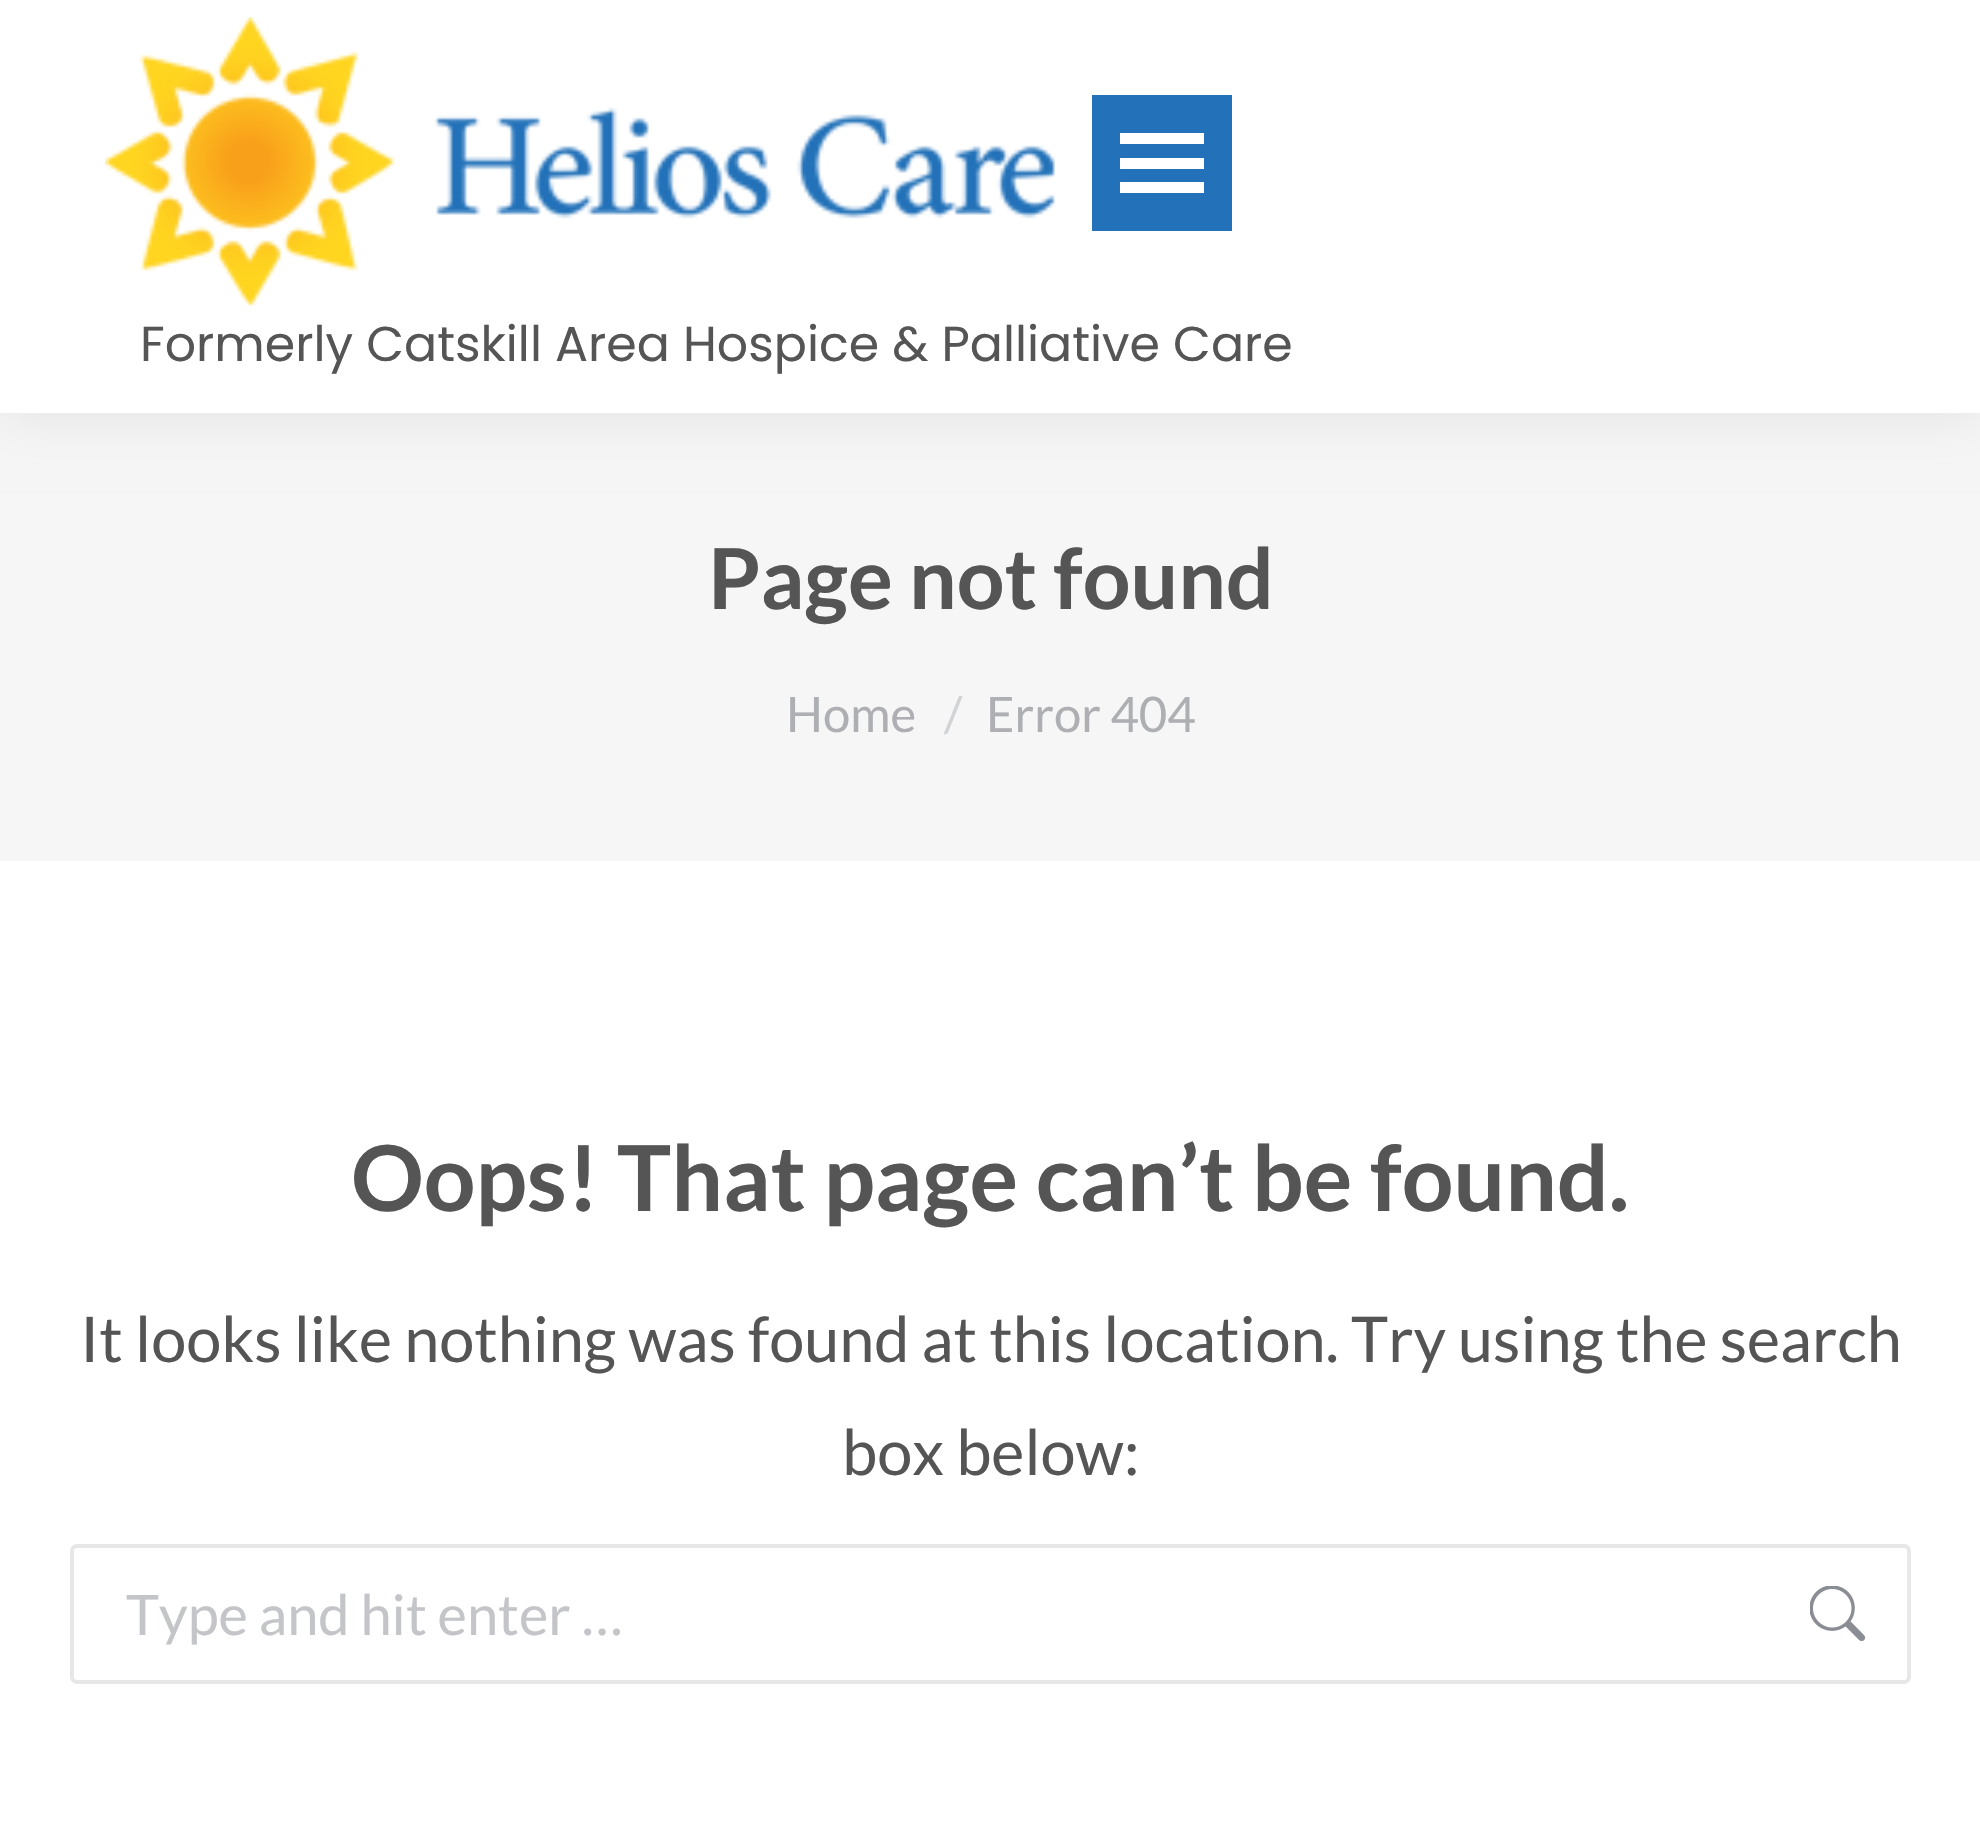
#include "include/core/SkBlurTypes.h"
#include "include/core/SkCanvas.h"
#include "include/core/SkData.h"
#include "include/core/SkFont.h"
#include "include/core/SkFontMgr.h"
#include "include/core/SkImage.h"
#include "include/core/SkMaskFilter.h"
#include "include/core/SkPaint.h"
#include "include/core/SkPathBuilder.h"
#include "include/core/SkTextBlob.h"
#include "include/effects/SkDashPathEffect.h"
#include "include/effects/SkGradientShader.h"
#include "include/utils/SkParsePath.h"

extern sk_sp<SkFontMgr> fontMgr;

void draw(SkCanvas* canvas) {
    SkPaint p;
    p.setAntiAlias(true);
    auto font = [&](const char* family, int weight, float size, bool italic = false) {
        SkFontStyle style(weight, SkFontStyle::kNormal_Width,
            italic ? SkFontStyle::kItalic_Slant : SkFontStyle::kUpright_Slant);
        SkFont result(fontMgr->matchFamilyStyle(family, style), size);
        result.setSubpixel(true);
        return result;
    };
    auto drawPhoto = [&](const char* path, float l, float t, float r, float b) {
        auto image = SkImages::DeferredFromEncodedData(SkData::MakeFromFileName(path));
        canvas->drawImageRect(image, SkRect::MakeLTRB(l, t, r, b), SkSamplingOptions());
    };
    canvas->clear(0xFFFFFFFF);
    p.setColor(0xFFF6F6F6);
    canvas->drawRect(SkRect::MakeLTRB(0, 413, 1980, 861), p);
    p.setColor(0x12000000);
    p.setMaskFilter(SkMaskFilter::MakeBlur(kNormal_SkBlurStyle, 26));
    canvas->drawRect(SkRect::MakeLTRB(-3, -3, 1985, 417), p);
    p.setMaskFilter(nullptr);
    p.setColor(0xFFFFFFFF);
    canvas->drawRect(SkRect::MakeLTRB(0, 0, 1980, 413), p);
    drawPhoto("media/1.png", 105, 17, 1055, 306);
    {
        const struct { float l, t, r, b; SkColor color; } items[] = {
            {1092, 95, 1232, 231, 0xFF2372B9},
            {1120, 133, 1204, 144, 0xFFFFFFFF},
            {1120, 158, 1204, 169, 0xFFFFFFFF},
            {1120, 182, 1204, 193, 0xFFFFFFFF},
        };
        for (auto [l, t, r, b, color] : items) {
            p.setColor(color);
            canvas->drawRect(SkRect::MakeLTRB(l, t, r, b), p);
        }
    }
    auto font1 = font("Poppins", 400, 49);
    p.setColor(0xFF555555);
    canvas->drawString("Formerly Catskill Area Hospice & Palliative Care", 140, 361, font1, p);
    auto font2 = font("Lato", 700, 84);
    canvas->drawString("Page not found", 708, 609, font2, p);
    auto font3 = font("Lato", 400, 49);
    p.setColor(0xFFADAFB3);
    canvas->drawString("Home", 786, 732, font3, p);
    p.setColor(0xFFD2D3D5);
    canvas->drawString("/", 944, 732, font3, p);
    p.setColor(0xFFADAFB3);
    canvas->drawString("Error 404", 986, 732, font3, p);
    auto font4 = font("Lato", 700, 91);
    p.setColor(0xFF555555);
    canvas->drawString("Oops! That page can’t be found.", 351, 1211, font4, p);
    auto font5 = font("Lato", 400, 63);
    canvas->drawString("It looks like nothing was found at this location. Try using the search", 80, 1362, font5, p);
    canvas->drawString("box below:", 842, 1475, font5, p);
    p.setStyle(SkPaint::kStroke_Style);
    p.setStrokeWidth(4);
    p.setColor(0xFFE7E7E7);
    canvas->drawRoundRect(SkRect::MakeLTRB(72, 1546, 1909, 1682), 5, 5, p);
    auto font6 = font("Lato", 400, 56);
    p.setStyle(SkPaint::kFill_Style);
    p.setColor(0xFFC4C5C9);
    canvas->drawString("Type and hit enter …", 126, 1635, font6, p);
    drawPhoto("media/2.png", 1810, 1586, 1866, 1642);
}
